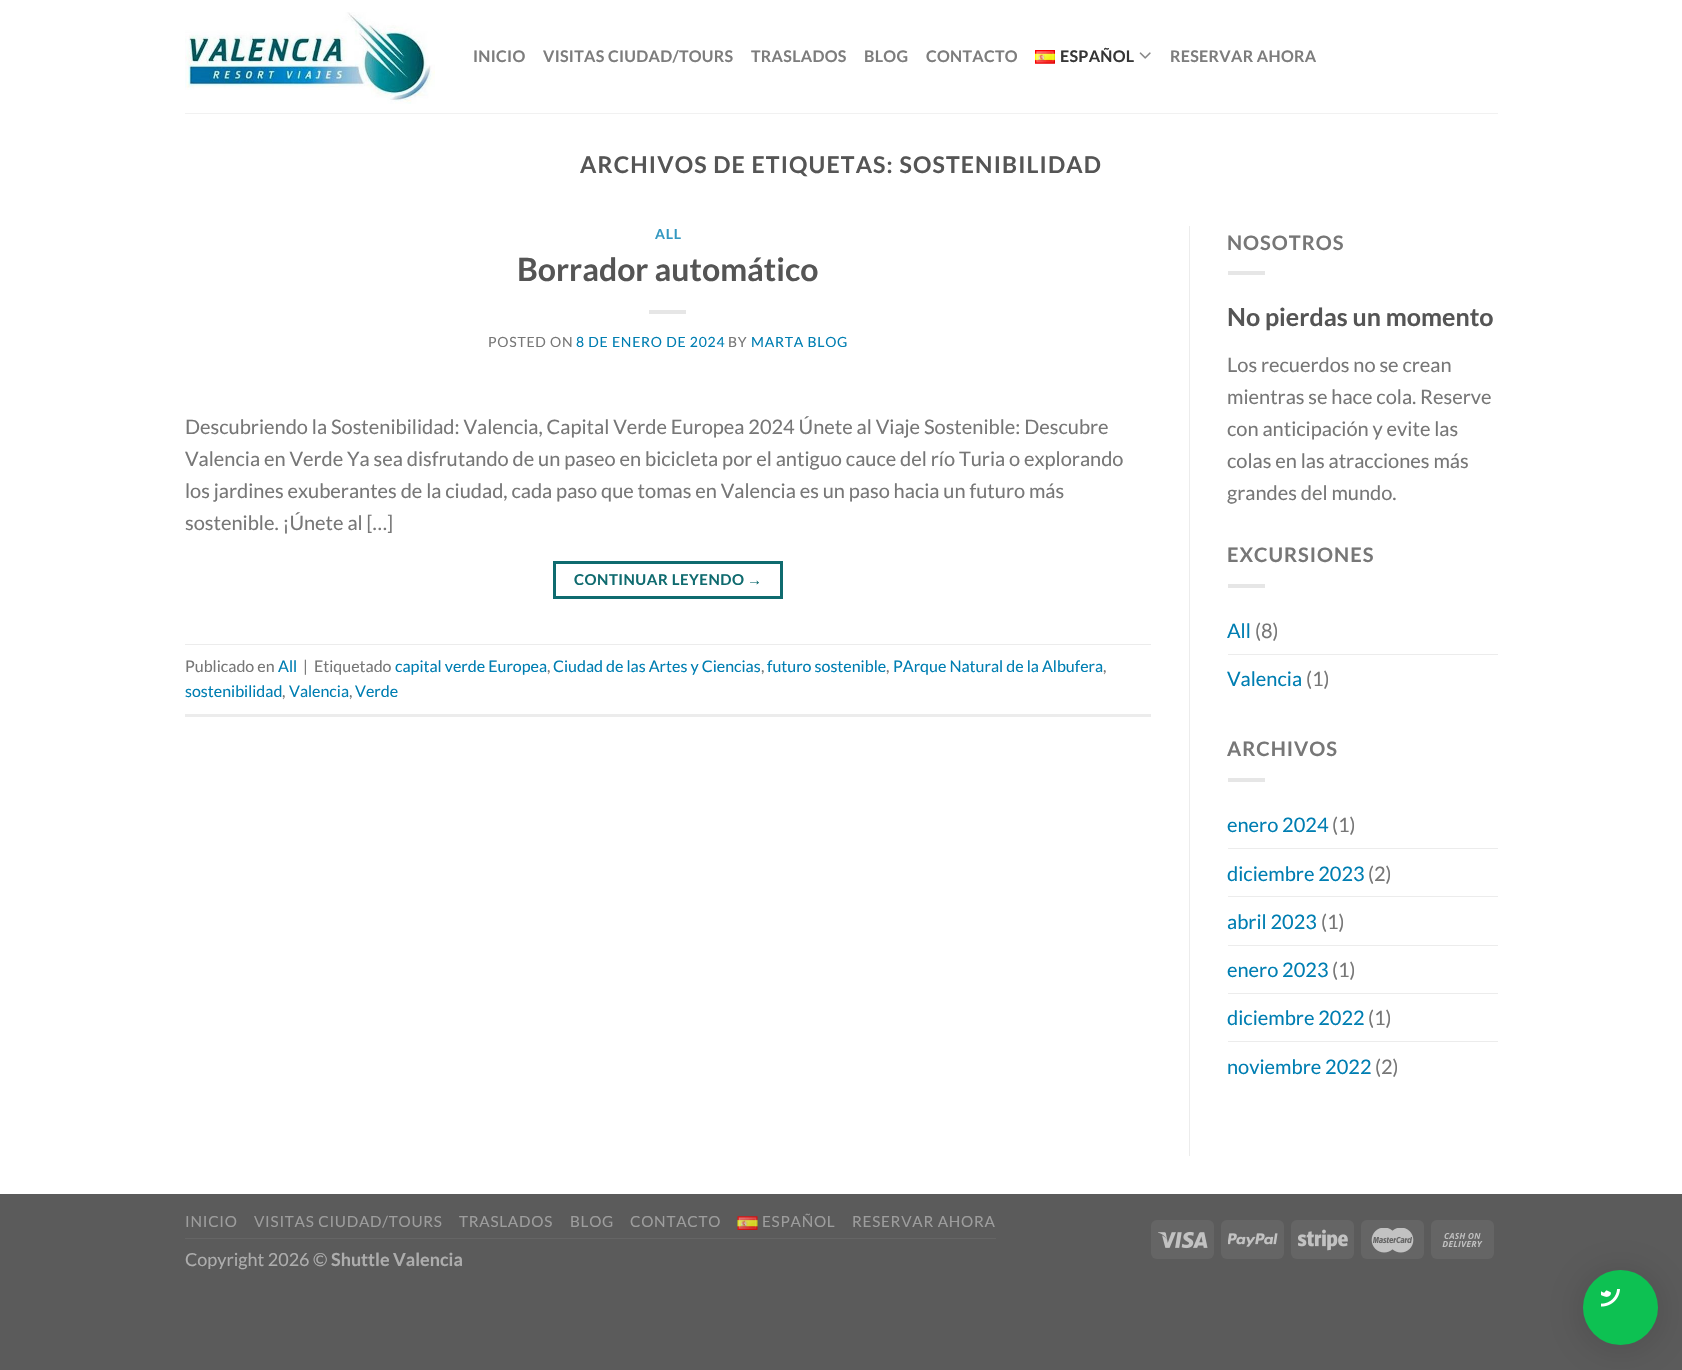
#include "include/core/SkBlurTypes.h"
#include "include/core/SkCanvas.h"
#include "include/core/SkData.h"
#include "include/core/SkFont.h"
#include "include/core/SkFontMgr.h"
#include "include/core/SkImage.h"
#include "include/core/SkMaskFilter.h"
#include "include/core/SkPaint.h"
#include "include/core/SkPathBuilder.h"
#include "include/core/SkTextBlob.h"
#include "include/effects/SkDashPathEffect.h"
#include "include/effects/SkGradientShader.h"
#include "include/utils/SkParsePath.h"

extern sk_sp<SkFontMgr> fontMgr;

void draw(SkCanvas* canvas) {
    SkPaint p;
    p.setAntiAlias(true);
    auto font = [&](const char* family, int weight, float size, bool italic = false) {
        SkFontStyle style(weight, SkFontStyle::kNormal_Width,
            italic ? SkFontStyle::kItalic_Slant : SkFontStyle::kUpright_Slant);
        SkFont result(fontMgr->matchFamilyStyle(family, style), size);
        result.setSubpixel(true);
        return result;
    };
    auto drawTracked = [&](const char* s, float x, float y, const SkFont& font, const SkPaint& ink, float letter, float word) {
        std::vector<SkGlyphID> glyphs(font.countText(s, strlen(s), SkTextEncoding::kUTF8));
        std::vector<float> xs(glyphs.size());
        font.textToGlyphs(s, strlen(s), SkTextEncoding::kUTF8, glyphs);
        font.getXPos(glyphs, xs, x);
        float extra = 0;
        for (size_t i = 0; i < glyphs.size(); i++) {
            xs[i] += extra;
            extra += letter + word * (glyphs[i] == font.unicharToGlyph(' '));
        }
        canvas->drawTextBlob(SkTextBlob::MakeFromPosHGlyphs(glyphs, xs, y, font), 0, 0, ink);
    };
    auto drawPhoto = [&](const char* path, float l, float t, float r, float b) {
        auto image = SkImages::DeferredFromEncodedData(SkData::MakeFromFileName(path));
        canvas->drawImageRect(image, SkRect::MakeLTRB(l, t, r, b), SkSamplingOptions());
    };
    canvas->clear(0xFF5B5B5B);
    p.setColor(0xFFFFFFFF);
    canvas->drawRect(SkRect::MakeLTRB(0, 0, 1682, 1194), p);
    drawPhoto("media/1.png", 185, 12, 435, 104);
    auto font1 = font("Lato", 700, 16);
    p.setColor(0xFF7D7D7D);
    {
        const struct { const char* s; float x, y; } items[] = {
            {"INICIO", 473, 62},
            {"VISITAS CIUDAD/TOURS", 543, 62},
            {"TRASLADOS", 751, 62},
            {"BLOG", 864, 62},
            {"CONTACTO", 926, 62},
        };
        for (auto [s, x, y] : items) {
            drawTracked(s, x, y, font1, p, 0.3f, 0);
        }
    }
    drawPhoto("media/2.png", 1035, 50, 1055, 64);
    p.setColor(0xFF363636);
    drawTracked("ESPAÑOL", 1060, 62, font1, p, 0.3f, 0);
    drawPhoto("media/3.png", 1139, 52, 1151, 59);
    p.setColor(0xFF7D7D7D);
    drawTracked("RESERVAR AHORA", 1170, 62, font1, p, 0.3f, 0);
    p.setColor(0xFFF1F1F1);
    canvas->drawRect(SkRect::MakeLTRB(185, 113, 1498, 114), p);
    auto font2 = font("Lato", 700, 23);
    p.setColor(0xFF555555);
    drawTracked("ARCHIVOS DE ETIQUETAS: SOSTENIBILIDAD", 580, 173, font2, p, 1.15f, 0);
    auto font3 = font("Lato", 700, 14);
    p.setColor(0xFF3398C1);
    drawTracked("ALL", 655, 239, font3, p, 0.75f, 0);
    auto font4 = font("Lato", 700, 32);
    p.setColor(0xFF555555);
    canvas->drawString("Borrador automático", 517, 281, font4, p);
    p.setColor(0xFFE6E6E6);
    canvas->drawRect(SkRect::MakeLTRB(649, 310, 686, 314), p);
    auto font5 = font("Lato", 400, 14);
    p.setColor(0xFF777777);
    drawTracked("POSTED ON", 488, 347, font5, p, 0.75f, 0);
    p.setColor(0xFF007EB2);
    drawTracked("8 DE ENERO DE 2024", 576, 347, font5, p, 0.75f, 0);
    p.setColor(0xFF777777);
    drawTracked("BY", 728, 347, font5, p, 0.75f, 0);
    p.setColor(0xFF007EB2);
    drawTracked("MARTA BLOG", 751, 347, font5, p, 0.75f, 0);
    auto font6 = font("Lato", 400, 20);
    p.setColor(0xFF777777);
    {
        const struct { const char* s; float x, y; } items[] = {
            {"Descubriendo la Sostenibilidad: Valencia, Capital Verde Europea 2024 Únete al Viaje Sostenible: Descubre", 185, 434},
            {"Valencia en Verde Ya sea disfrutando de un paseo en bicicleta por el antiguo cauce del río Turia o explorando", 185, 466},
            {"los jardines exuberantes de la ciudad, cada paso que tomas en Valencia es un paso hacia un futuro más", 185, 498},
            {"sostenible. ¡Únete al […]", 185, 530},
        };
        for (auto [s, x, y] : items) {
            canvas->drawString(s, x, y, font6, p);
        }
    }
    p.setStyle(SkPaint::kStroke_Style);
    p.setStrokeWidth(3);
    p.setColor(0xFF0F6B6F);
    canvas->drawRect(SkRect::MakeLTRB(554.5f, 562.5f, 781.5f, 597.5f), p);
    auto font7 = font("Lato", 700, 15);
    p.setStyle(SkPaint::kFill_Style);
    drawTracked("CONTINUAR LEYENDO", 574, 585, font7, p, 0.5f, 0);
    auto font8 = font("Liberation Sans", 700, 15);
    drawTracked("→", 747, 585, font8, p, 0.5f, 0);
    p.setColor(0xFFECECEC);
    canvas->drawRect(SkRect::MakeLTRB(185, 644, 1151, 645), p);
    canvas->drawRect(SkRect::MakeLTRB(185, 714, 1151, 717), p);
    auto font9 = font("Lato", 400, 16);
    p.setColor(0xFF777777);
    canvas->drawString("Publicado en", 185, 672, font9, p);
    p.setColor(0xFF007EB2);
    canvas->drawString("All", 278, 672, font9, p);
    p.setColor(0xFF777777);
    canvas->drawString("|", 303, 672, font9, p);
    canvas->drawString("Etiquetado", 314, 672, font9, p);
    p.setColor(0xFF007EB2);
    canvas->drawString("capital verde Europea", 395, 672, font9, p);
    p.setColor(0xFF777777);
    canvas->drawString(",", 547, 672, font9, p);
    p.setColor(0xFF007EB2);
    canvas->drawString("Ciudad de las Artes y Ciencias", 553, 672, font9, p);
    p.setColor(0xFF777777);
    canvas->drawString(",", 761, 672, font9, p);
    p.setColor(0xFF007EB2);
    canvas->drawString("futuro sostenible", 767, 672, font9, p);
    p.setColor(0xFF777777);
    canvas->drawString(",", 886, 672, font9, p);
    p.setColor(0xFF007EB2);
    canvas->drawString("PArque Natural de la Albufera", 893, 672, font9, p);
    p.setColor(0xFF777777);
    canvas->drawString(",", 1103, 672, font9, p);
    p.setColor(0xFF007EB2);
    canvas->drawString("sostenibilidad", 185, 697, font9, p);
    p.setColor(0xFF777777);
    canvas->drawString(",", 282, 697, font9, p);
    p.setColor(0xFF007EB2);
    canvas->drawString("Valencia", 289, 697, font9, p);
    p.setColor(0xFF777777);
    canvas->drawString(",", 349, 697, font9, p);
    p.setColor(0xFF007EB2);
    canvas->drawString("Verde", 355, 697, font9, p);
    p.setColor(0xFFECECEC);
    canvas->drawRect(SkRect::MakeLTRB(1189, 226, 1190, 1156), p);
    auto font10 = font("Lato", 700, 20);
    p.setColor(0xFF777777);
    drawTracked("NOSOTROS", 1227, 250, font10, p, 1, 0);
    p.setColor(0xFFE6E6E6);
    canvas->drawRect(SkRect::MakeLTRB(1228, 271, 1265, 275), p);
    auto font11 = font("Lato", 700, 25);
    p.setColor(0xFF555555);
    canvas->drawString("No pierdas un momento", 1227, 326, font11, p);
    p.setColor(0xFF777777);
    {
        const struct { const char* s; float x, y; } items[] = {
            {"Los recuerdos no se crean", 1227, 372},
            {"mientras se hace cola. Reserve", 1227, 404},
            {"con anticipación y evite las", 1227, 436},
            {"colas en las atracciones más", 1227, 468},
            {"grandes del mundo.", 1227, 500},
        };
        for (auto [s, x, y] : items) {
            canvas->drawString(s, x, y, font6, p);
        }
    }
    drawTracked("EXCURSIONES", 1227, 562, font10, p, 1, 0);
    p.setColor(0xFFE6E6E6);
    canvas->drawRect(SkRect::MakeLTRB(1228, 584, 1265, 588), p);
    p.setColor(0xFF007EB2);
    canvas->drawString("All", 1227, 638, font6, p);
    p.setColor(0xFF777777);
    canvas->drawString("(8)", 1255, 638, font6, p);
    p.setColor(0xFFECECEC);
    canvas->drawRect(SkRect::MakeLTRB(1228, 654, 1498, 655), p);
    p.setColor(0xFF007EB2);
    canvas->drawString("Valencia", 1227, 686, font6, p);
    p.setColor(0xFF777777);
    canvas->drawString("(1)", 1306, 686, font6, p);
    drawTracked("ARCHIVOS", 1227, 756, font10, p, 1, 0);
    p.setColor(0xFFE6E6E6);
    canvas->drawRect(SkRect::MakeLTRB(1228, 778, 1265, 782), p);
    p.setColor(0xFF007EB2);
    canvas->drawString("enero 2024", 1227, 832, font6, p);
    p.setColor(0xFF777777);
    canvas->drawString("(1)", 1332, 832, font6, p);
    p.setColor(0xFFECECEC);
    canvas->drawRect(SkRect::MakeLTRB(1228, 848, 1498, 849), p);
    p.setColor(0xFF007EB2);
    canvas->drawString("diciembre 2023", 1227, 881, font6, p);
    p.setColor(0xFF777777);
    canvas->drawString("(2)", 1368, 881, font6, p);
    p.setColor(0xFFECECEC);
    canvas->drawRect(SkRect::MakeLTRB(1228, 896, 1498, 897), p);
    p.setColor(0xFF007EB2);
    canvas->drawString("abril 2023", 1227, 929, font6, p);
    p.setColor(0xFF777777);
    canvas->drawString("(1)", 1321, 929, font6, p);
    p.setColor(0xFFECECEC);
    canvas->drawRect(SkRect::MakeLTRB(1228, 945, 1498, 946), p);
    p.setColor(0xFF007EB2);
    canvas->drawString("enero 2023", 1227, 977, font6, p);
    p.setColor(0xFF777777);
    canvas->drawString("(1)", 1332, 977, font6, p);
    p.setColor(0xFFECECEC);
    canvas->drawRect(SkRect::MakeLTRB(1228, 993, 1498, 994), p);
    p.setColor(0xFF007EB2);
    canvas->drawString("diciembre 2022", 1227, 1025, font6, p);
    p.setColor(0xFF777777);
    canvas->drawString("(1)", 1368, 1025, font6, p);
    p.setColor(0xFFECECEC);
    canvas->drawRect(SkRect::MakeLTRB(1228, 1041, 1498, 1042), p);
    p.setColor(0xFF007EB2);
    canvas->drawString("noviembre 2022", 1227, 1074, font6, p);
    p.setColor(0xFF777777);
    canvas->drawString("(2)", 1375, 1074, font6, p);
    p.setColor(0xFF656565);
    canvas->drawRect(SkRect::MakeLTRB(185, 1238, 996, 1239), p);
    auto font12 = font("Lato", 400, 15.25f);
    p.setColor(0xFF9D9D9D);
    {
        const struct { const char* s; float x, y; } items[] = {
            {"INICIO", 185, 1227},
            {"VISITAS CIUDAD/TOURS", 254, 1227},
            {"TRASLADOS", 459, 1227},
            {"BLOG", 570, 1227},
            {"CONTACTO", 630, 1227},
        };
        for (auto [s, x, y] : items) {
            drawTracked(s, x, y, font12, p, 0.75f, 0);
        }
    }
    drawPhoto("media/4.png", 737, 1216, 758, 1230);
    drawTracked("ESPAÑOL", 762, 1227, font12, p, 0.75f, 0);
    drawTracked("RESERVAR AHORA", 852, 1227, font12, p, 0.75f, 0);
    auto font13 = font("Lato", 400, 18);
    p.setColor(0xFFADADAD);
    canvas->drawString("Copyright 2026 ©", 185, 1266, font13, p);
    auto font14 = font("Lato", 700, 18);
    canvas->drawString("Shuttle Valencia", 331, 1266, font14, p);
    p.setColor(0xFF656565);
    canvas->drawRoundRect(SkRect::MakeLTRB(1151, 1220, 1214, 1259), 6, 6, p);
    drawPhoto("media/5.png", 1158, 1231, 1208, 1249);
    canvas->drawRoundRect(SkRect::MakeLTRB(1221, 1220, 1284, 1259), 6, 6, p);
    drawPhoto("media/6.png", 1228, 1233, 1278, 1247);
    canvas->drawRoundRect(SkRect::MakeLTRB(1291, 1220, 1354, 1259), 6, 6, p);
    drawPhoto("media/7.png", 1298, 1229, 1348, 1251);
    canvas->drawRoundRect(SkRect::MakeLTRB(1361, 1220, 1424, 1259), 6, 6, p);
    drawPhoto("media/8.png", 1371, 1228, 1414, 1253);
    canvas->drawRoundRect(SkRect::MakeLTRB(1431, 1220, 1494, 1259), 6, 6, p);
    drawPhoto("media/9.png", 1442, 1233, 1483, 1247);
    p.setColor(0x29000000);
    p.setMaskFilter(SkMaskFilter::MakeBlur(kNormal_SkBlurStyle, 20));
    canvas->drawRoundRect(SkRect::MakeLTRB(1583, 1273, 1658, 1348), 37.5f, 37.5f, p);
    p.setMaskFilter(nullptr);
    p.setColor(0xFF0DC152);
    canvas->drawCircle(1620.5f, 1307.5f, 37.5f, p);
    drawPhoto("media/10.png", 1601, 1289, 1620, 1307);
}
